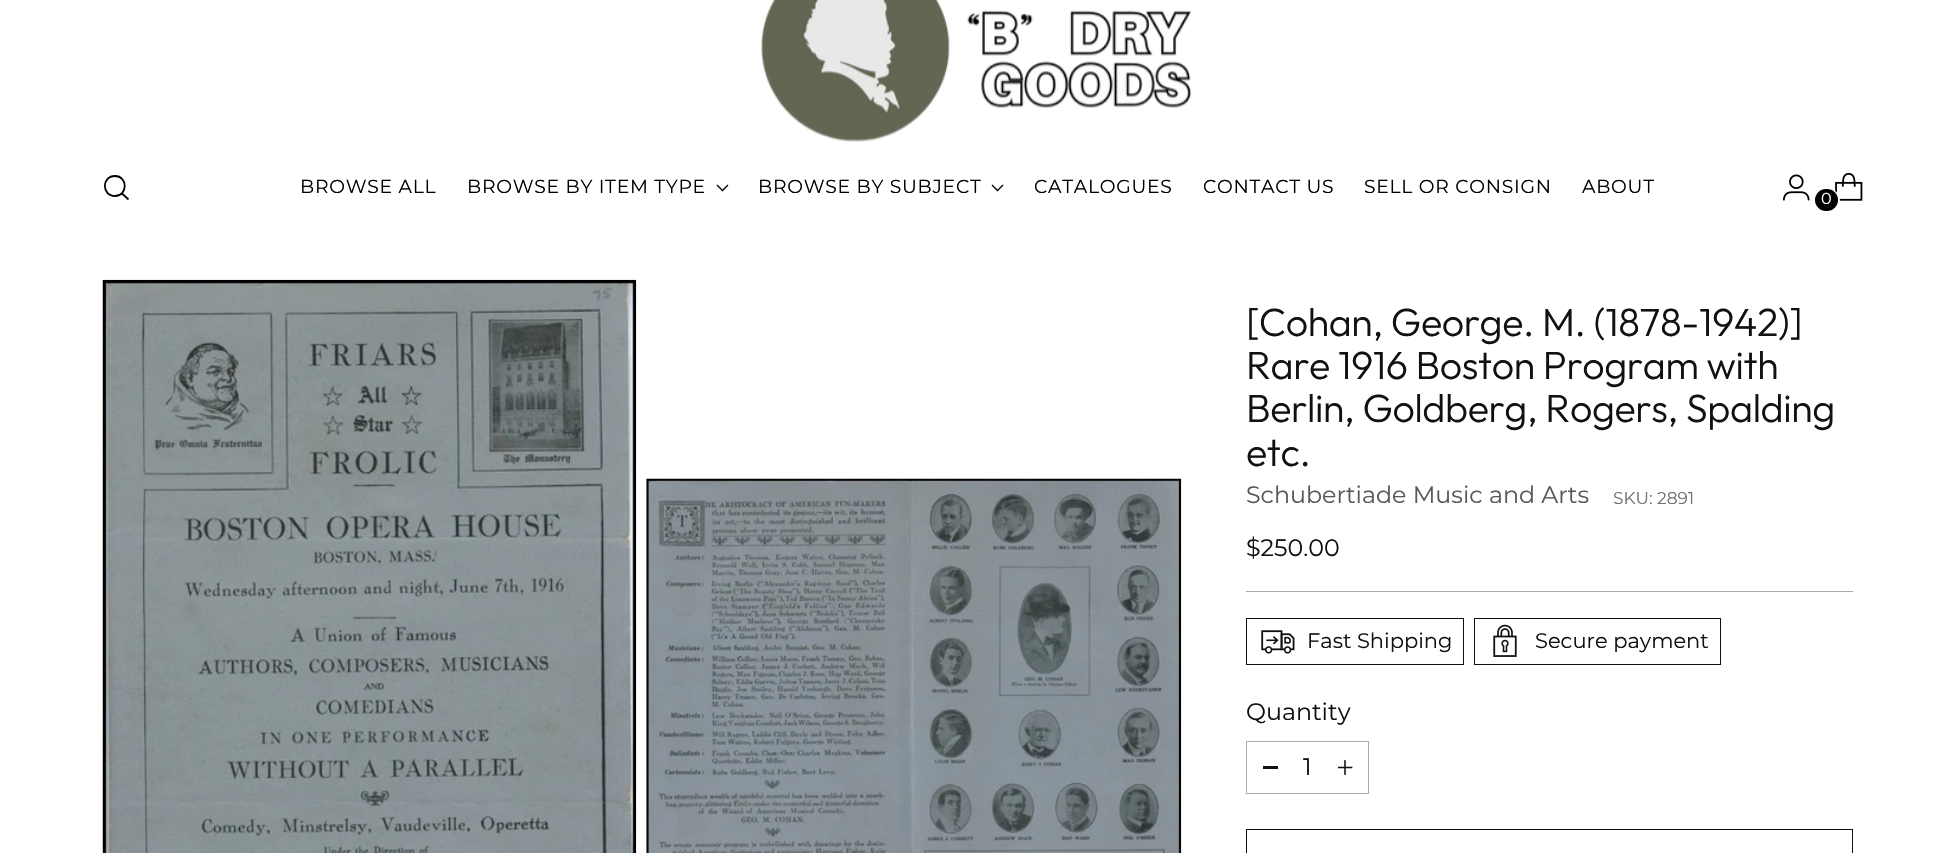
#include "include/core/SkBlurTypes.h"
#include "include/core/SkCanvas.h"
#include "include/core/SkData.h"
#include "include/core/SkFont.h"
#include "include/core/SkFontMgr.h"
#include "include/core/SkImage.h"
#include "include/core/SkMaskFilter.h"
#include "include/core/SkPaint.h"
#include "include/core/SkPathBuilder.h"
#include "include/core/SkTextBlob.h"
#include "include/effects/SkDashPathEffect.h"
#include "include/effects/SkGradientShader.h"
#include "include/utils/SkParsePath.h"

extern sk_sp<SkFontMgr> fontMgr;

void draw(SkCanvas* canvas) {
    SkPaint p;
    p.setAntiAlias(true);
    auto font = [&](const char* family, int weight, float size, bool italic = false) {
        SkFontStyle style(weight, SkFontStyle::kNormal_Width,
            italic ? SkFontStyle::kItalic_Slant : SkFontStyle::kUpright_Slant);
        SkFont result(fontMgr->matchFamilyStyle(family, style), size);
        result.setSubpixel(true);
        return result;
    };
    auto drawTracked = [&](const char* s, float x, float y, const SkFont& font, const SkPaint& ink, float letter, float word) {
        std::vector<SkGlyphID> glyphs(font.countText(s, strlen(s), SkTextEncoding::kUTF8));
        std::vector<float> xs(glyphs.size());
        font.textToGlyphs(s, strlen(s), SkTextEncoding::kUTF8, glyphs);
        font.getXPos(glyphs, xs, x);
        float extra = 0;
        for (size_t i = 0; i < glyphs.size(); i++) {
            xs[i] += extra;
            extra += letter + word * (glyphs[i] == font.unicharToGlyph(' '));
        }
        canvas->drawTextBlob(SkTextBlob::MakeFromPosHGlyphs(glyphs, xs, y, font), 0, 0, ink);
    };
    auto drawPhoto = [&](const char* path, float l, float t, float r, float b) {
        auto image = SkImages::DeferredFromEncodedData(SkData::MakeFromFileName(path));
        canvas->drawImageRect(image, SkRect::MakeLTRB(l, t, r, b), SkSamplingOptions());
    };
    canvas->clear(0xFFFFFFFF);
    drawPhoto("media/1.png", 761, 0, 1192, 142);
    p.setStyle(SkPaint::kStroke_Style);
    p.setStrokeWidth(1.8f);
    p.setStrokeCap(SkPaint::kRound_Cap);
    p.setColor(0xFF000000);
    canvas->drawPath(SkPathBuilder().moveTo(115, 196).cubicTo(128, 196, 128, 176, 115, 176).cubicTo(101.5f, 176, 101.5f, 196, 115, 196).close().detach(), p);
    p.setStrokeCap(SkPaint::kButt_Cap);
    canvas->drawPath(SkPathBuilder().moveTo(122, 193.5f).lineTo(128.5f, 199.5f).detach(), p);
    auto font1 = font("Montserrat", 400, 18.75f);
    p.setStyle(SkPaint::kFill_Style);
    drawTracked("BROWSE ALL", 300, 193, font1, p, 0.75f, 0);
    drawTracked("BROWSE BY ITEM TYPE", 467, 193, font1, p, 0.75f, 0);
    p.setStyle(SkPaint::kStroke_Style);
    p.setStrokeWidth(1.4f);
    canvas->drawPath(SkPathBuilder().moveTo(717, 185).lineTo(722.5f, 190.5f).lineTo(728, 185).detach(), p);
    p.setStyle(SkPaint::kFill_Style);
    drawTracked("BROWSE BY SUBJECT", 758, 193, font1, p, 0.75f, 0);
    p.setStyle(SkPaint::kStroke_Style);
    canvas->drawPath(SkPathBuilder().moveTo(992, 185).lineTo(997.5f, 190.5f).lineTo(1003, 185).detach(), p);
    p.setStyle(SkPaint::kFill_Style);
    {
        const struct { const char* s; float x, y; } items[] = {
            {"CATALOGUES", 1034, 193},
            {"CONTACT US", 1203, 193},
            {"SELL OR CONSIGN", 1364, 193},
            {"ABOUT", 1582, 193},
        };
        for (auto [s, x, y] : items) {
            drawTracked(s, x, y, font1, p, 0.75f, 0);
        }
    }
    drawPhoto("media/2.png", 1783, 174, 1810, 201);
    drawPhoto("media/3.png", 1835, 173, 1863, 201);
    p.setStyle(SkPaint::kStroke_Style);
    p.setStrokeWidth(2);
    p.setColor(0xFFFFFFFF);
    canvas->drawCircle(1827, 201, 12, p);
    p.setStyle(SkPaint::kFill_Style);
    p.setColor(0xFF000000);
    canvas->drawRoundRect(SkRect::MakeLTRB(1815, 189, 1838, 211), 11, 11, p);
    auto font2 = font("Montserrat", 400, 16);
    p.setColor(0xFFFFFFFF);
    canvas->drawString("0", 1821, 204, font2, p);
    drawPhoto("media/4.png", 102, 279, 637, 853);
    drawPhoto("media/5.png", 646, 478, 1182, 853);
    p.setColor(0xFFAAAAAA);
    canvas->drawRect(SkRect::MakeLTRB(1246, 591, 1853, 592), p);
    auto font3 = font("Outfit", 300, 39.4f);
    p.setColor(0xFF111111);
    {
        const struct { const char* s; float x, y; } items[] = {
            {"[Cohan, George. M. (1878-1942)]", 1246, 336},
            {"Rare 1916 Boston Program with", 1246, 379},
            {"Berlin, Goldberg, Rogers, Spalding", 1246, 422},
            {"etc.", 1246, 466},
        };
        for (auto [s, x, y] : items) {
            drawTracked(s, x, y, font3, p, -0.4f, 0);
        }
    }
    auto font4 = font("Montserrat", 400, 23.75f);
    p.setColor(0xFF585858);
    canvas->drawString("Schubertiade Music and Arts", 1246, 503, font4, p);
    auto font5 = font("Montserrat", 400, 17);
    p.setColor(0xFF707070);
    canvas->drawString("SKU: 2891", 1613, 504, font5, p);
    p.setColor(0xFF111111);
    canvas->drawString("$250.00", 1246, 556, font4, p);
    p.setStyle(SkPaint::kStroke_Style);
    p.setStrokeWidth(1);
    canvas->drawRect(SkRect::MakeLTRB(1246.5f, 618.5f, 1463.5f, 664.5f), p);
    drawPhoto("media/6.png", 1261, 630, 1295, 654);
    auto font6 = font("Montserrat", 400, 21);
    p.setStyle(SkPaint::kFill_Style);
    canvas->drawString("Fast Shipping", 1307, 648, font6, p);
    p.setStyle(SkPaint::kStroke_Style);
    canvas->drawRect(SkRect::MakeLTRB(1474.5f, 618.5f, 1720.5f, 664.5f), p);
    drawPhoto("media/7.png", 1493, 624, 1517, 657);
    p.setStyle(SkPaint::kFill_Style);
    canvas->drawString("Secure payment", 1535, 648, font6, p);
    canvas->drawString("Quantity", 1246, 720, font4, p);
    p.setStyle(SkPaint::kStroke_Style);
    p.setColor(0xFFAAAAAA);
    canvas->drawRect(SkRect::MakeLTRB(1246.5f, 741.5f, 1368.5f, 793.5f), p);
    p.setStyle(SkPaint::kFill_Style);
    p.setColor(0xFF111111);
    canvas->drawRect(SkRect::MakeLTRB(1263, 766, 1278, 769), p);
    canvas->drawString("1", 1303, 775, font4, p);
    drawPhoto("media/8.png", 1338, 760, 1353, 775);
    p.setStyle(SkPaint::kStroke_Style);
    canvas->drawRect(SkRect::MakeLTRB(1246.5f, 829.5f, 1852.5f, 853.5f), p);
}
